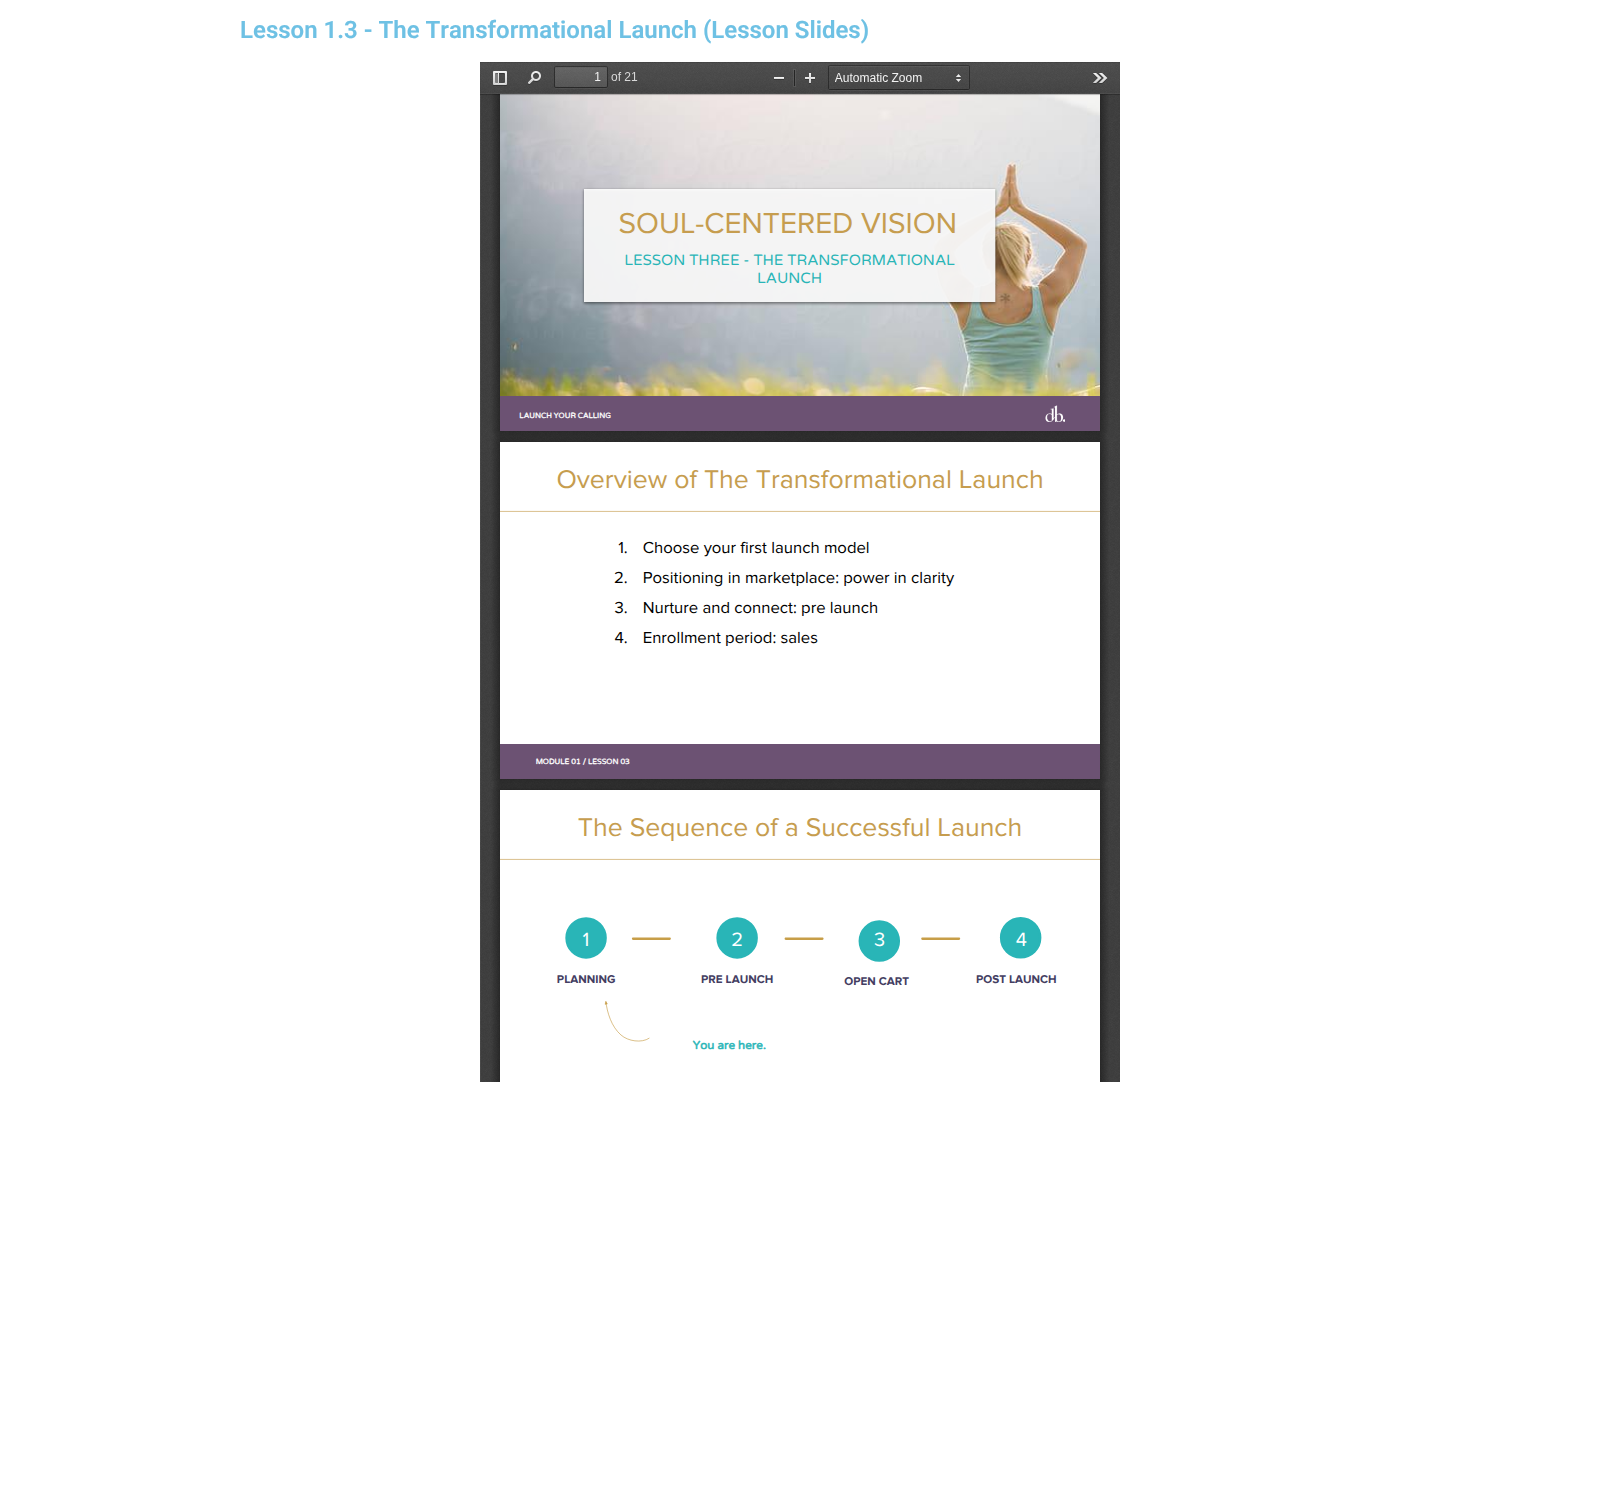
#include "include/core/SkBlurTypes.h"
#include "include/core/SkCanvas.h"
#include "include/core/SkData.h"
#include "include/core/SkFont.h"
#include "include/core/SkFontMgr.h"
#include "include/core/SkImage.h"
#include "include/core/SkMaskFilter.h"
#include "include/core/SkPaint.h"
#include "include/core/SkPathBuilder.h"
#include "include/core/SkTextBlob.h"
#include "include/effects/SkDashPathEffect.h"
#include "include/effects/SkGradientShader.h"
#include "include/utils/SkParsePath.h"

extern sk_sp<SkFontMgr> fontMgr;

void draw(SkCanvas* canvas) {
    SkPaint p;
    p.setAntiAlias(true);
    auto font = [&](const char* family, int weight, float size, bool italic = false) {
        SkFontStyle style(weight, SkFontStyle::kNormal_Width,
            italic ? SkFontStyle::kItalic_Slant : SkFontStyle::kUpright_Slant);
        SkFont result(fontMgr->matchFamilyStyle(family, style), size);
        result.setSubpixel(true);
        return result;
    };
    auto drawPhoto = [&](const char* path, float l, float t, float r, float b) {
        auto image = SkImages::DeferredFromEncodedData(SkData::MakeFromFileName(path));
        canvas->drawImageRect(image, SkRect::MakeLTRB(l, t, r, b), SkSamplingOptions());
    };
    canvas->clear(0xFFFFFFFF);
    auto font1 = font("Roboto", 600, 24);
    p.setColor(0xFF6EC1E4);
    canvas->drawString("Lesson 1.3 - The Transformational Launch (Lesson Slides)", 240, 38, font1, p);
    drawPhoto("media/1.png", 480, 62, 1120, 1082);
}
